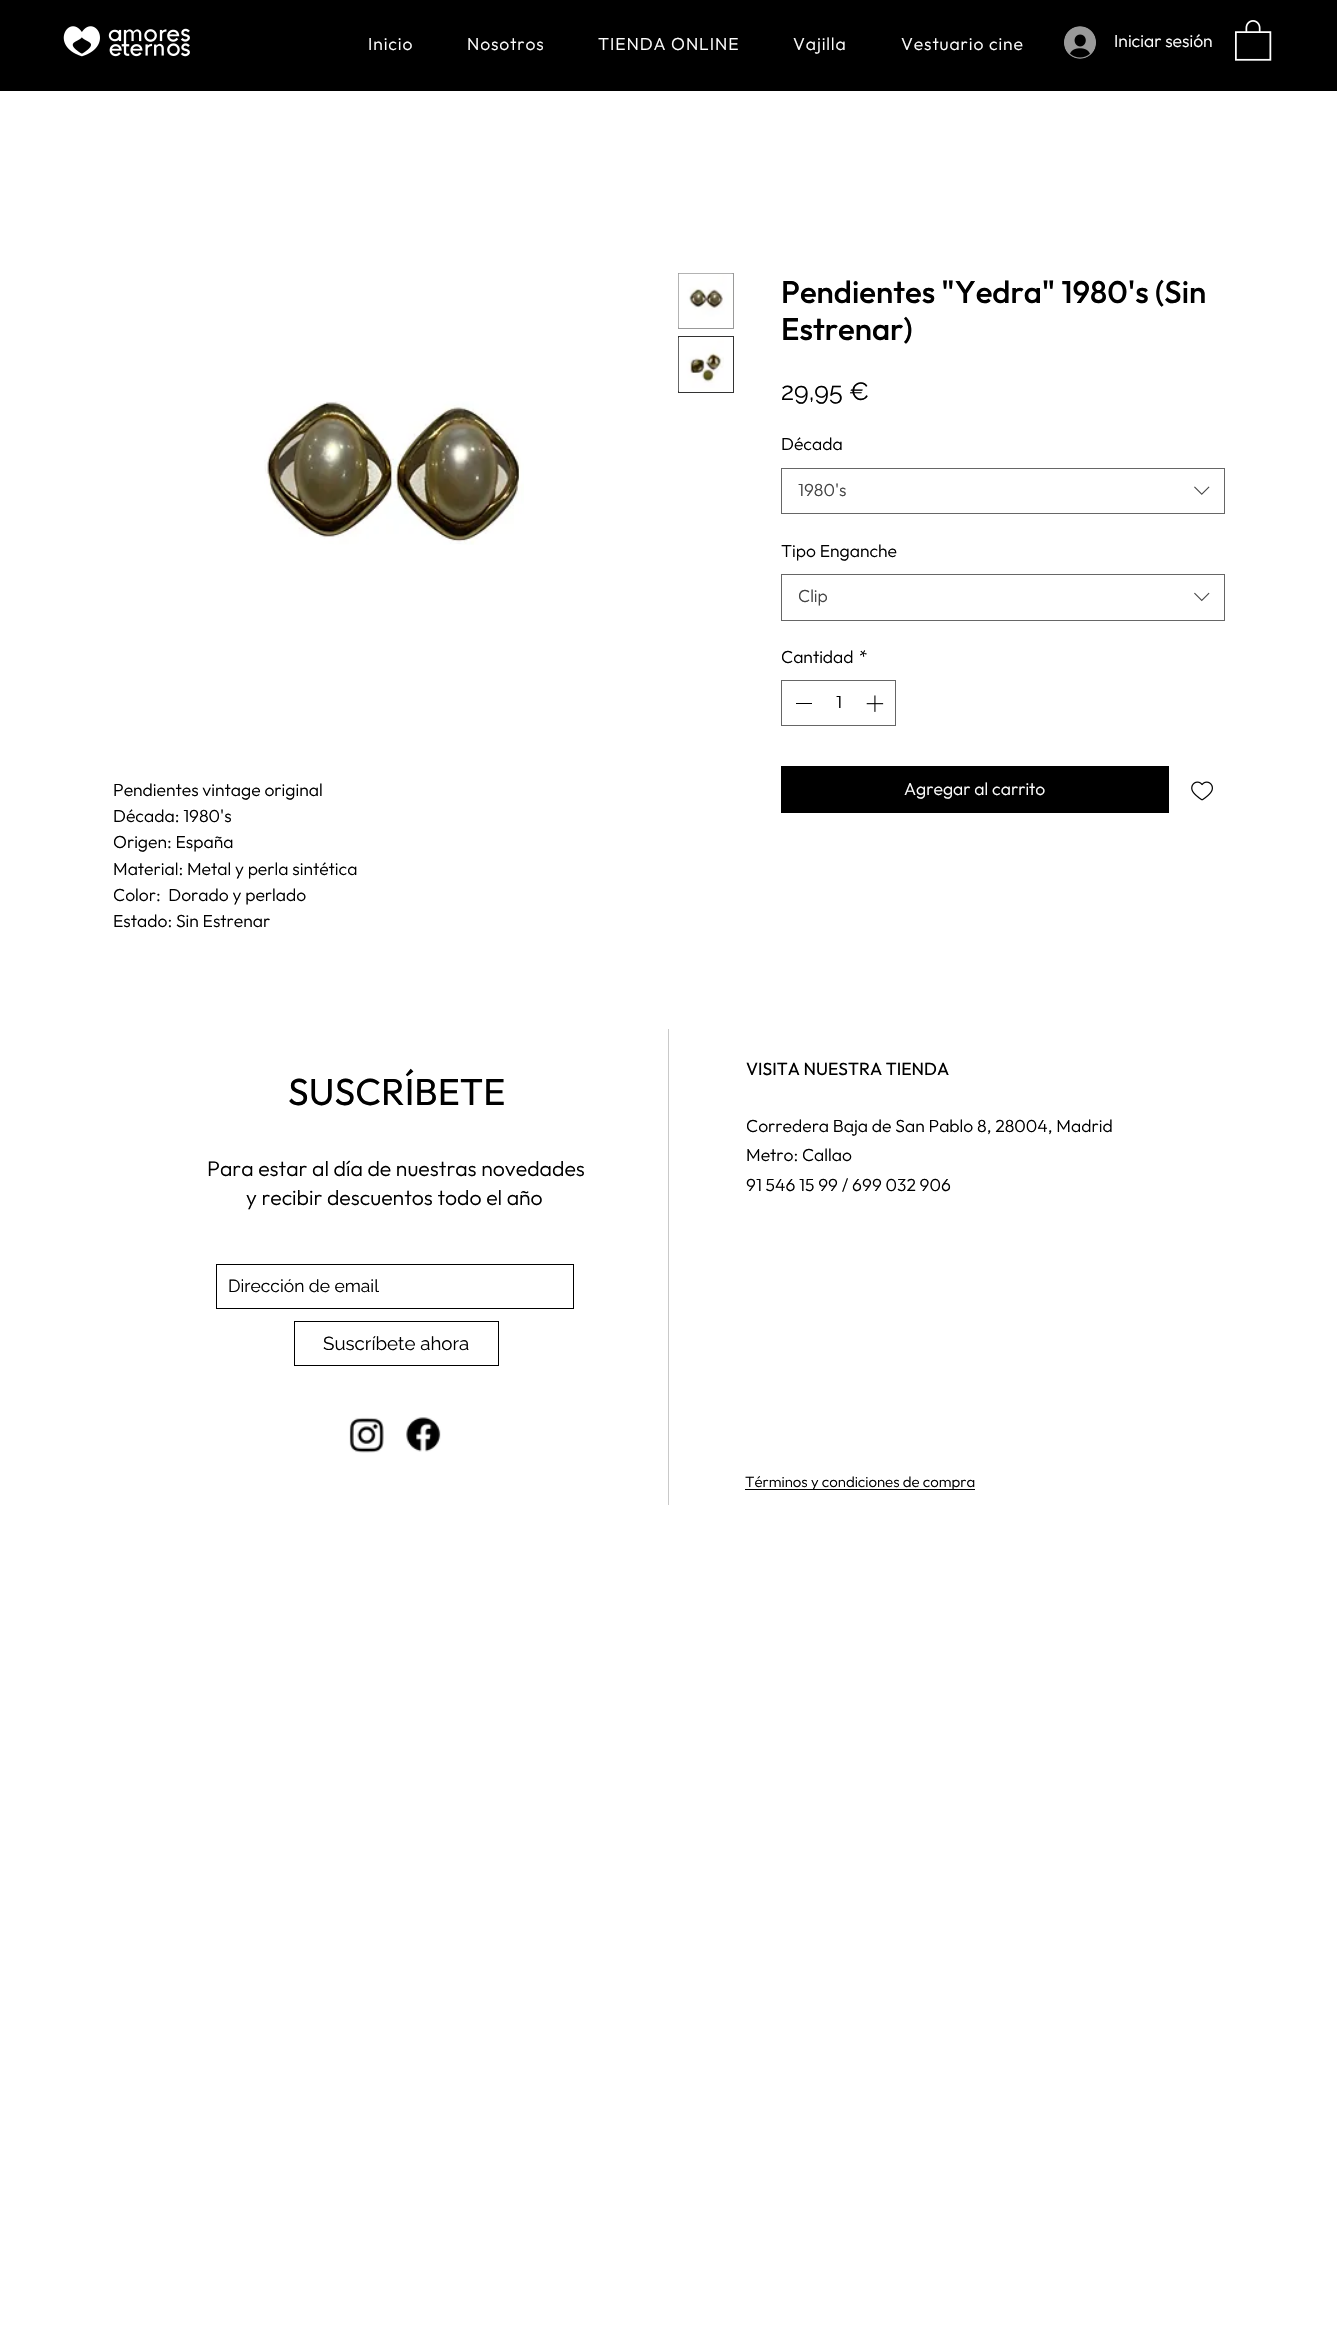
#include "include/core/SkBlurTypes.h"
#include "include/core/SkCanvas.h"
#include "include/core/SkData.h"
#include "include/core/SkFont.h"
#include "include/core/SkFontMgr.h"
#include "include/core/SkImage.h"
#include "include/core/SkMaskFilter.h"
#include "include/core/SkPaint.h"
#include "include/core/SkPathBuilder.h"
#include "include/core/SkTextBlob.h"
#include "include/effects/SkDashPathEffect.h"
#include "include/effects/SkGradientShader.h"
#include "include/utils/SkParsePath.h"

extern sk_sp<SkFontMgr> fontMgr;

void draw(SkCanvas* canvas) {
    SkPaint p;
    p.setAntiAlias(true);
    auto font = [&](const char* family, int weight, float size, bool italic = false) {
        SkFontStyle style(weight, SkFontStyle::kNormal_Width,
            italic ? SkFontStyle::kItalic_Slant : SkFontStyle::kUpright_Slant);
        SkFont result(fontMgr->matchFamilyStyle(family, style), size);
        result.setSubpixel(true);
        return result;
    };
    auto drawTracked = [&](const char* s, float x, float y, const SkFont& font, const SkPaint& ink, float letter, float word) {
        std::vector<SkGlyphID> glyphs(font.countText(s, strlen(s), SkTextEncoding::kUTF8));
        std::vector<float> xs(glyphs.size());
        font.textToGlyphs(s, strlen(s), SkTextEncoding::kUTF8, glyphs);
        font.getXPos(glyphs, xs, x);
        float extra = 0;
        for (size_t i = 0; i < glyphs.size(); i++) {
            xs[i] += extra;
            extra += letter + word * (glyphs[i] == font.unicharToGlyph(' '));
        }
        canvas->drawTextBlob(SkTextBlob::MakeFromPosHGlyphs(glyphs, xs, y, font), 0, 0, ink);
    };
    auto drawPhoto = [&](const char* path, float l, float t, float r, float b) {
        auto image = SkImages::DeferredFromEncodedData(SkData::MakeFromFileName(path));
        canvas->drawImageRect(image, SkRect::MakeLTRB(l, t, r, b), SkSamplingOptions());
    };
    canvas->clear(0xFFFFFFFF);
    p.setColor(0xFF000000);
    canvas->drawRect(SkRect::MakeLTRB(0, 0, 1337, 91), p);
    drawPhoto("media/1.png", 63, 26, 100, 57);
    drawPhoto("media/2.png", 108, 28, 190, 57);
    auto font1 = font("Outfit", 300, 17.5f);
    p.setColor(0xFFFFFFFF);
    {
        const struct { const char* s; float x, y; } items[] = {
            {"Inicio", 368, 50},
            {"Nosotros", 467, 50},
            {"TIENDA ONLINE", 598, 50},
            {"Vajilla", 793, 50},
            {"Vestuario cine", 901, 50},
        };
        for (auto [s, x, y] : items) {
            drawTracked(s, x, y, font1, p, 0.9f, 0);
        }
    }
    drawPhoto("media/3.png", 1064, 26, 1096, 59);
    canvas->drawString("Iniciar sesión", 1114, 47, font1, p);
    drawPhoto("media/4.png", 1235, 20, 1272, 61);
    auto font2 = font("Outfit", 500, 31.25f);
    p.setColor(0xFF000000);
    canvas->drawString("Pendientes \"Yedra\" 1980's (Sin", 781, 303, font2, p);
    canvas->drawString("Estrenar)", 781, 340, font2, p);
    auto font3 = font("Raleway", 400, 25);
    canvas->drawString("29,95 €", 781, 400, font3, p);
    canvas->drawString("Década", 781, 450, font1, p);
    p.setStyle(SkPaint::kStroke_Style);
    p.setStrokeWidth(1);
    p.setColor(0xFF666666);
    canvas->drawRect(SkRect::MakeLTRB(781.5f, 468.5f, 1224.5f, 513.5f), p);
    p.setStyle(SkPaint::kFill_Style);
    p.setColor(0xFF444444);
    canvas->drawString("1980's", 798, 496, font1, p);
    drawPhoto("media/5.png", 1194, 486, 1210, 495);
    p.setColor(0xFF000000);
    canvas->drawString("Tipo Enganche", 781, 557, font1, p);
    p.setStyle(SkPaint::kStroke_Style);
    p.setColor(0xFF666666);
    canvas->drawRect(SkRect::MakeLTRB(781.5f, 574.5f, 1224.5f, 620.5f), p);
    p.setStyle(SkPaint::kFill_Style);
    p.setColor(0xFF444444);
    canvas->drawString("Clip", 798, 602, font1, p);
    drawPhoto("media/6.png", 1194, 592, 1210, 602);
    p.setColor(0xFF000000);
    canvas->drawString("Cantidad", 781, 663, font1, p);
    canvas->drawString("*", 859, 663, font1, p);
    p.setStyle(SkPaint::kStroke_Style);
    p.setColor(0xFF666666);
    canvas->drawRect(SkRect::MakeLTRB(781.5f, 680.5f, 895.5f, 725.5f), p);
    p.setStyle(SkPaint::kFill_Style);
    p.setColor(0xFF000000);
    canvas->drawRect(SkRect::MakeLTRB(796, 703, 812, 704), p);
    canvas->drawString("1", 836, 708, font1, p);
    drawPhoto("media/7.png", 866, 695, 884, 712);
    canvas->drawRect(SkRect::MakeLTRB(781, 766, 1169, 813), p);
    p.setColor(0xFFFFFFFF);
    canvas->drawString("Agregar al carrito", 904, 795, font1, p);
    drawPhoto("media/8.png", 1191, 781, 1213, 801);
    p.setStyle(SkPaint::kStroke_Style);
    p.setColor(0xFF999999);
    canvas->drawRect(SkRect::MakeLTRB(678.5f, 273.5f, 733.5f, 328.5f), p);
    drawPhoto("media/9.png", 678, 273, 733, 328);
    p.setColor(0xFF333333);
    canvas->drawRect(SkRect::MakeLTRB(678.5f, 336.5f, 733.5f, 392.5f), p);
    drawPhoto("media/10.png", 678, 337, 724, 392);
    drawPhoto("media/11.png", 264, 401, 524, 545);
    p.setStyle(SkPaint::kFill_Style);
    p.setColor(0xFF000000);
    {
        const struct { const char* s; float x, y; } items[] = {
            {"Pendientes vintage original", 113, 796},
            {"Década: 1980's", 113, 822},
            {"Origen: España", 113, 848},
            {"Material: Metal y perla sintética", 113, 875},
            {"Color:  Dorado y perlado", 113, 901},
            {"Estado: Sin Estrenar", 113, 927},
        };
        for (auto [s, x, y] : items) {
            canvas->drawString(s, x, y, font1, p);
        }
    }
    auto font4 = font("Outfit", 400, 37.5f);
    canvas->drawString("SUSCRÍBETE", 288, 1105, font4, p);
    auto font5 = font("Outfit", 300, 21.25f);
    canvas->drawString("Para estar al día de nuestras novedades", 207, 1176, font5, p);
    canvas->drawString("y recibir descuentos todo el año", 246, 1205, font5, p);
    p.setColor(0xFFC9C9C9);
    canvas->drawRect(SkRect::MakeLTRB(668, 1029, 669, 1505), p);
    auto font6 = font("Outfit", 400, 17.5f);
    p.setColor(0xFF000000);
    canvas->drawString("VISITA NUESTRA TIENDA", 746, 1075, font6, p);
    {
        const struct { const char* s; float x, y; } items[] = {
            {"Corredera Baja de San Pablo 8, 28004, Madrid", 746, 1132},
            {"Metro: Callao", 746, 1161},
            {"91 546 15 99 / 699 032 906", 746, 1191},
        };
        for (auto [s, x, y] : items) {
            canvas->drawString(s, x, y, font1, p);
        }
    }
    p.setStyle(SkPaint::kStroke_Style);
    canvas->drawRect(SkRect::MakeLTRB(216.5f, 1264.5f, 573.5f, 1308.5f), p);
    auto font7 = font("Raleway", 400, 17.5f);
    p.setStyle(SkPaint::kFill_Style);
    canvas->drawString("Dirección de email", 228, 1292, font7, p);
    p.setStyle(SkPaint::kStroke_Style);
    canvas->drawRect(SkRect::MakeLTRB(294.5f, 1321.5f, 498.5f, 1365.5f), p);
    auto font8 = font("Raleway", 400, 18.75f);
    p.setStyle(SkPaint::kFill_Style);
    canvas->drawString("Suscríbete ahora", 323, 1350, font8, p);
    drawPhoto("media/12.png", 349, 1417, 384, 1453);
    drawPhoto("media/13.png", 406, 1417, 441, 1452);
    canvas->drawRect(SkRect::MakeLTRB(745, 1489, 975, 1490), p);
    auto font9 = font("Outfit", 300, 15);
    canvas->drawString("Términos y condiciones de compra", 745, 1487, font9, p);
}
